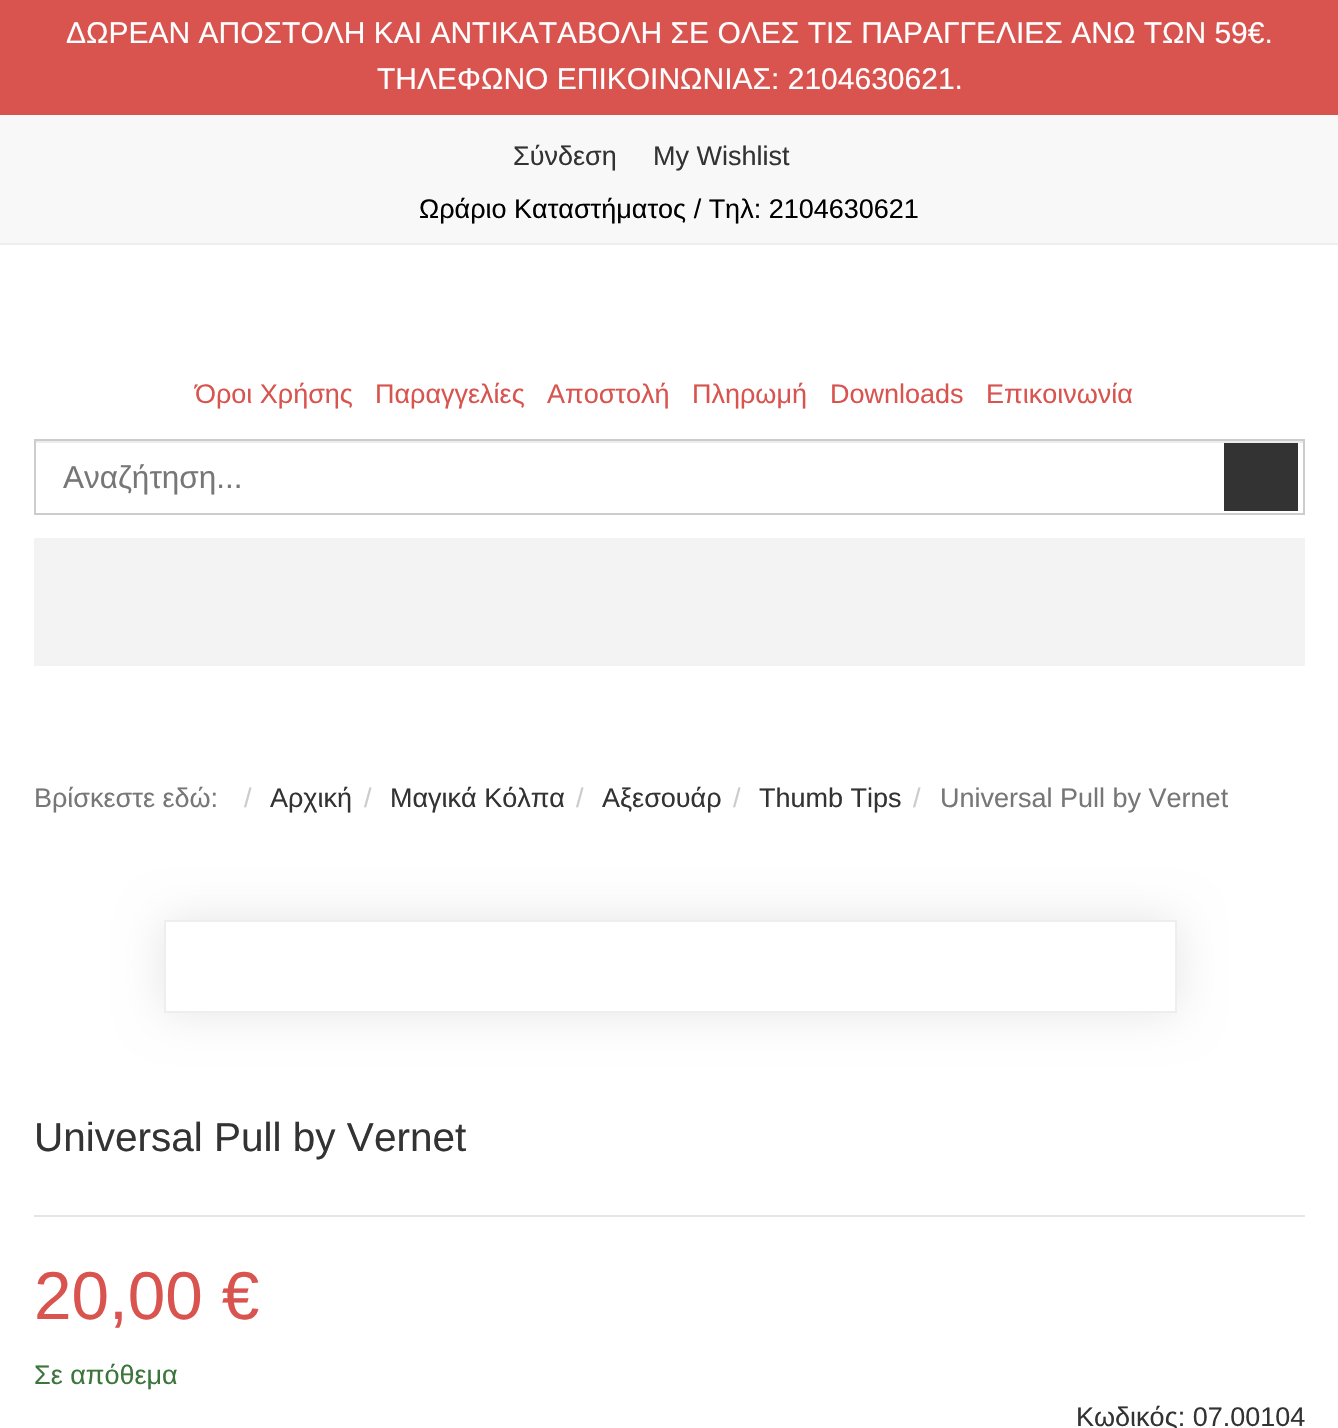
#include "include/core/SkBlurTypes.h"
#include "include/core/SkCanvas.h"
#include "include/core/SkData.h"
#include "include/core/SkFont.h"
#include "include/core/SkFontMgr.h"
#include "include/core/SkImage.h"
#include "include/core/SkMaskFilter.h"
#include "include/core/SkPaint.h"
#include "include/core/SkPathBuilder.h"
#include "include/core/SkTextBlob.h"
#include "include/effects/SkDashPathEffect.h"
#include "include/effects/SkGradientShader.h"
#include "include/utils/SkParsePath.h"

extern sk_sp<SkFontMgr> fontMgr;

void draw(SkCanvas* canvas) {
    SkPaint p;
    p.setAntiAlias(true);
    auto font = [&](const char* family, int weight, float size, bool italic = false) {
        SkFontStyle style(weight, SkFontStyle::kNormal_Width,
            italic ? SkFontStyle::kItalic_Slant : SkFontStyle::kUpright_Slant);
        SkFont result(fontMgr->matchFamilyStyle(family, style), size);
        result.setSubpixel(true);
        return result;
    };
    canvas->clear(0xFFFFFFFF);
    p.setColor(0xFFD9534F);
    canvas->drawRect(SkRect::MakeLTRB(0, 0, 1338, 115), p);
    auto font1 = font("Liberation Sans", 400, 30);
    p.setColor(0xFFFFFFFF);
    canvas->drawString("ΔΩΡΕΑΝ ΑΠΟΣΤΟΛΗ ΚΑΙ ΑΝΤΙΚΑΤΑΒΟΛΗ ΣΕ ΟΛΕΣ ΤΙΣ ΠΑΡΑΓΓΕΛΙΕΣ ΑΝΩ ΤΩΝ 59€.", 66, 43, font1, p);
    canvas->drawString("ΤΗΛΕΦΩΝΟ ΕΠΙΚΟΙΝΩΝΙΑΣ: 2104630621.", 377, 89, font1, p);
    p.setColor(0xFFF8F8F8);
    canvas->drawRect(SkRect::MakeLTRB(0, 115, 1338, 243), p);
    p.setColor(0xFFEEEEEE);
    canvas->drawRect(SkRect::MakeLTRB(0, 243, 1338, 245), p);
    auto font2 = font("Liberation Sans", 400, 27);
    p.setColor(0xFF333333);
    canvas->drawString("Σύνδεση", 513, 165, font2, p);
    canvas->drawString("My Wishlist", 653, 165, font2, p);
    p.setColor(0xFF000000);
    canvas->drawString("Ωράριο Καταστήματος / Τηλ: 2104630621", 419, 218, font2, p);
    p.setColor(0xFFD9534F);
    {
        const struct { const char* s; float x, y; } items[] = {
            {"Όροι Χρήσης", 195, 403},
            {"Παραγγελίες", 375, 403},
            {"Αποστολή", 547, 403},
            {"Πληρωμή", 692, 403},
            {"Downloads", 830, 403},
            {"Επικοινωνία", 986, 403},
        };
        for (auto [s, x, y] : items) {
            canvas->drawString(s, x, y, font2, p);
        }
    }
    p.setColor(0xFFECECEC);
    canvas->drawRect(SkRect::MakeLTRB(36, 441, 1303, 443), p);
    p.setStyle(SkPaint::kStroke_Style);
    p.setStrokeWidth(2);
    p.setColor(0xFFCCCCCC);
    canvas->drawRect(SkRect::MakeLTRB(35, 440, 1304, 514), p);
    auto font3 = font("Liberation Sans", 400, 31.5f);
    p.setStyle(SkPaint::kFill_Style);
    p.setColor(0xFF777777);
    canvas->drawString("Αναζήτηση...", 63, 488, font3, p);
    p.setColor(0xFF333333);
    canvas->drawRect(SkRect::MakeLTRB(1224, 443, 1298, 511), p);
    p.setColor(0xFFF3F3F3);
    canvas->drawRect(SkRect::MakeLTRB(34, 538, 1305, 666), p);
    p.setColor(0xFF777777);
    canvas->drawString("Βρίσκεστε εδώ:", 34, 807, font2, p);
    p.setColor(0xFFCCCCCC);
    canvas->drawString("/", 244, 807, font2, p);
    p.setColor(0xFF333333);
    canvas->drawString("Αρχική", 270, 807, font2, p);
    p.setColor(0xFFCCCCCC);
    canvas->drawString("/", 364, 807, font2, p);
    p.setColor(0xFF333333);
    canvas->drawString("Μαγικά Κόλπα", 390, 807, font2, p);
    p.setColor(0xFFCCCCCC);
    canvas->drawString("/", 576, 807, font2, p);
    p.setColor(0xFF333333);
    canvas->drawString("Αξεσουάρ", 602, 807, font2, p);
    p.setColor(0xFFCCCCCC);
    canvas->drawString("/", 733, 807, font2, p);
    p.setColor(0xFF333333);
    canvas->drawString("Thumb Tips", 759, 807, font2, p);
    p.setColor(0xFFCCCCCC);
    canvas->drawString("/", 913, 807, font2, p);
    p.setColor(0xFF777777);
    canvas->drawString("Universal Pull by Vernet", 940, 807, font2, p);
    p.setColor(0x1A000000);
    p.setMaskFilter(SkMaskFilter::MakeBlur(kNormal_SkBlurStyle, 22.5f));
    canvas->drawRect(SkRect::MakeLTRB(164, 920, 1177, 1013), p);
    p.setMaskFilter(nullptr);
    p.setColor(0xFFFFFFFF);
    canvas->drawRect(SkRect::MakeLTRB(165, 921, 1176, 1012), p);
    p.setStyle(SkPaint::kStroke_Style);
    p.setColor(0xFFEEEEEE);
    canvas->drawRect(SkRect::MakeLTRB(165, 921, 1176, 1012), p);
    auto font4 = font("Liberation Sans", 400, 40.5f);
    p.setStyle(SkPaint::kFill_Style);
    p.setColor(0xFF333333);
    canvas->drawString("Universal Pull by Vernet", 34, 1151, font4, p);
    p.setColor(0xFFE6E6E6);
    canvas->drawRect(SkRect::MakeLTRB(34, 1215, 1305, 1217), p);
    auto font5 = font("Liberation Sans", 400, 67.5f);
    p.setColor(0xFFD9534F);
    canvas->drawString("20,00 €", 34, 1319, font5, p);
    p.setColor(0xFF3C763D);
    canvas->drawString("Σε απόθεμα", 34, 1384, font2, p);
    p.setColor(0xFF333333);
    canvas->drawString("Κωδικός: 07.00104", 1076, 1426, font2, p);
}
